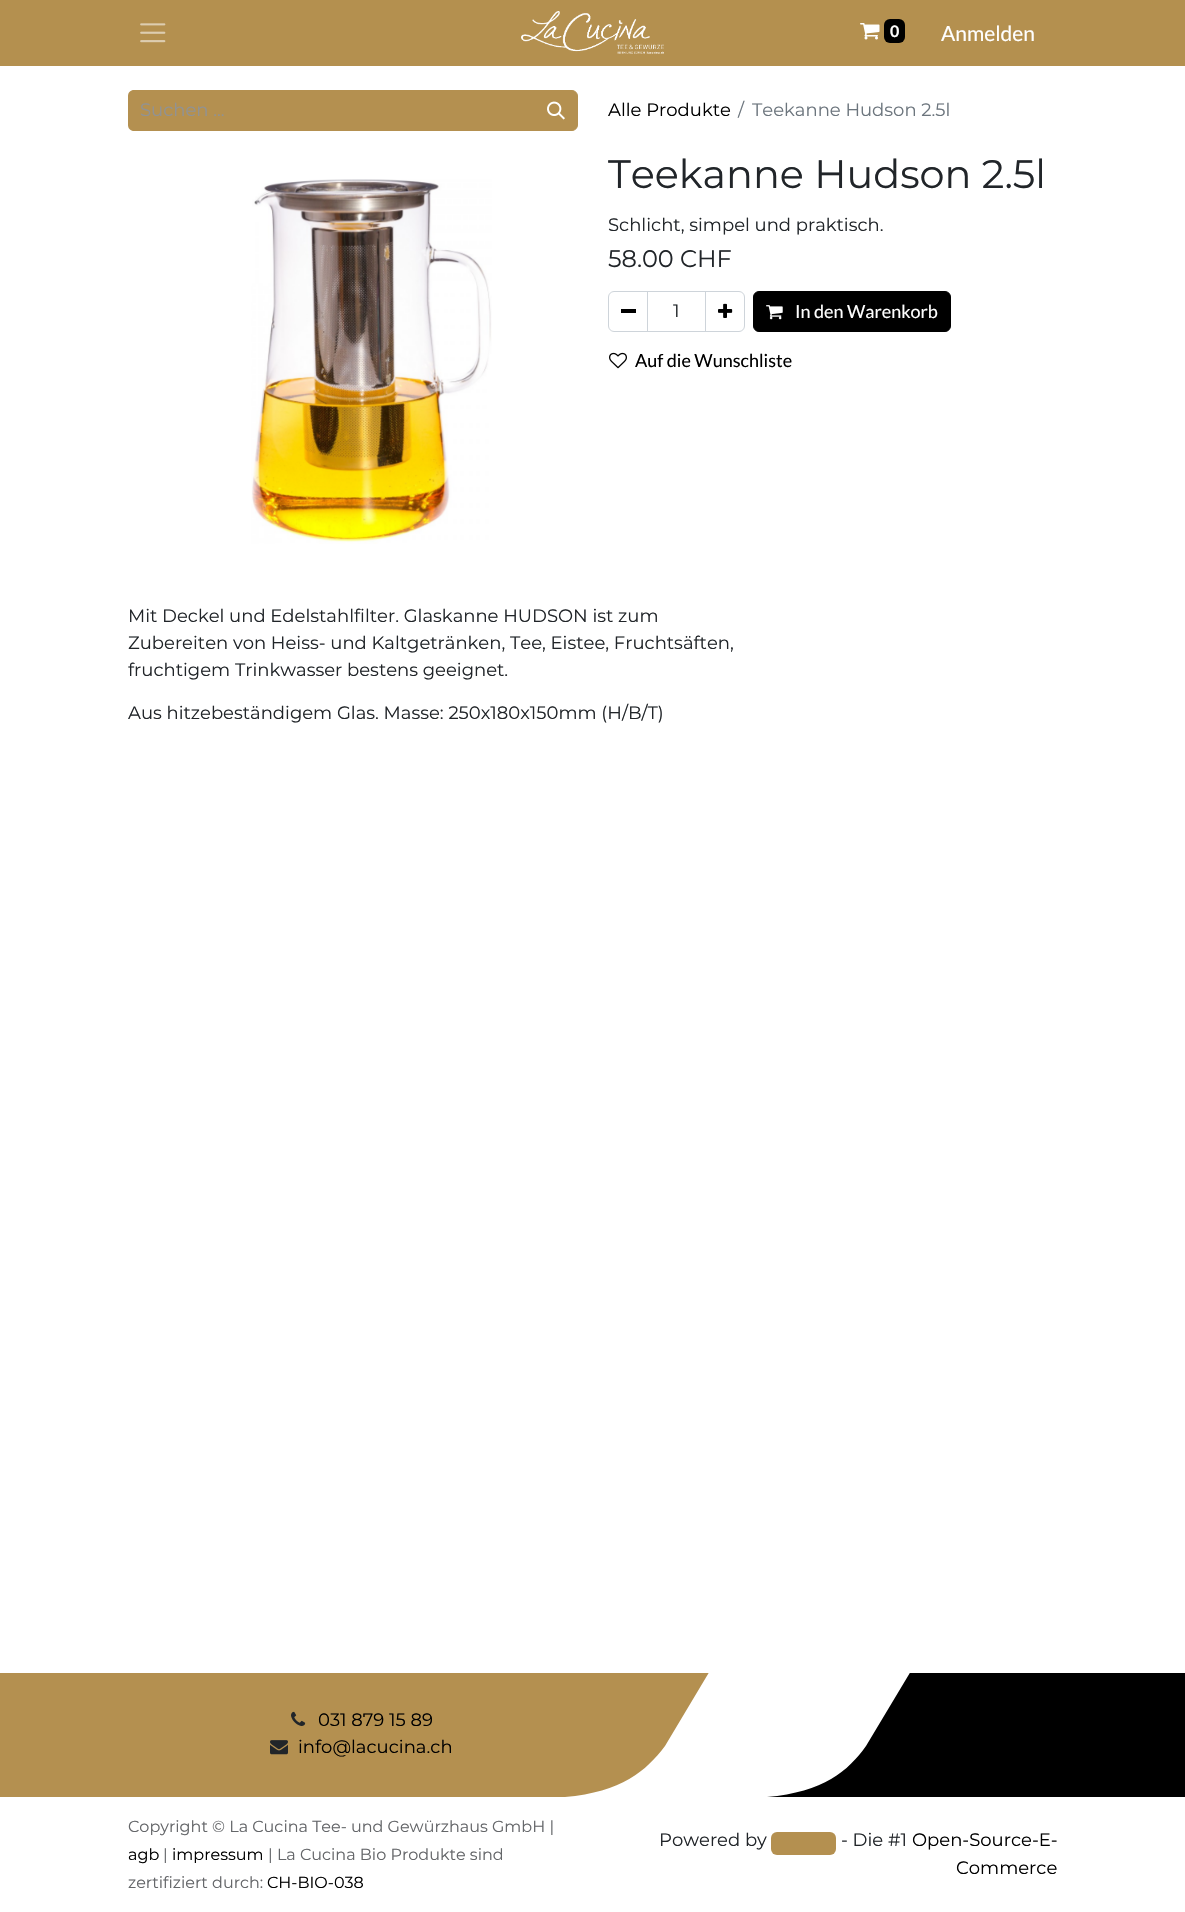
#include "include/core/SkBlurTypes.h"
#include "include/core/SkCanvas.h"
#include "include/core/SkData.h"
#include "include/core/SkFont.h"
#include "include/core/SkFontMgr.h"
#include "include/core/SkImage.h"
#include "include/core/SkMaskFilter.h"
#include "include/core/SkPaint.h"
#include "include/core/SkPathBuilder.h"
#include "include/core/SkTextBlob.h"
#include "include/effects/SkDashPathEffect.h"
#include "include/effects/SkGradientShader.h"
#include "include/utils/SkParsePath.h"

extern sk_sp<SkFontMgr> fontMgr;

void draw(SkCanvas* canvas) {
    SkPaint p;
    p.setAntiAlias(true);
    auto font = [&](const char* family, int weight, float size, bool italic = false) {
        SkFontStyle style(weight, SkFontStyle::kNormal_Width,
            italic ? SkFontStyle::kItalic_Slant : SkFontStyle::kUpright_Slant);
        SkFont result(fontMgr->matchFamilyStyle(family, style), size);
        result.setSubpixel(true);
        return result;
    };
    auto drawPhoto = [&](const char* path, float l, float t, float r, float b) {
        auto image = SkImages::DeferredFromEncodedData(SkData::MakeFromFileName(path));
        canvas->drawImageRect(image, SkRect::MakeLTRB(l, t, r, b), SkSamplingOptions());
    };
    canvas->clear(0xFFFFFFFF);
    p.setColor(0xFFB4904F);
    canvas->drawRect(SkRect::MakeLTRB(0, 0, 1185, 66), p);
    drawPhoto("media/1.png", 140, 23, 166, 43);
    drawPhoto("media/2.png", 521, 11, 664, 54);
    drawPhoto("media/3.png", 860, 23, 880, 40);
    p.setColor(0xFF000000);
    canvas->drawRoundRect(SkRect::MakeLTRB(884, 19, 905, 43), 6, 6, p);
    auto font1 = font("Lato", 700, 16);
    p.setColor(0xFFFFFFFF);
    canvas->drawString("0", 890, 37, font1, p);
    auto font2 = font("Lato", 400, 21);
    canvas->drawString("Anmelden", 941, 41, font2, p);
    p.setColor(0xFFB49050);
    canvas->drawPath(SkPathBuilder().moveTo(134, 90).lineTo(535, 90).lineTo(535, 131).lineTo(134, 131).cubicTo(130.5f, 131, 128, 128.5f, 128, 125).lineTo(128, 96).cubicTo(128, 92.5f, 130.5f, 90, 134, 90).close().detach(), p);
    auto font3 = font("Montserrat", 400, 18);
    p.setColor(0xFF909294);
    canvas->drawString("Suchen ...", 140, 116, font3, p);
    p.setColor(0xFFB49050);
    canvas->drawPath(SkPathBuilder().moveTo(534.5f, 90.5f).lineTo(572, 90.5f).cubicTo(575, 90.5f, 577.5f, 93, 577.5f, 96).lineTo(577.5f, 125).cubicTo(577.5f, 128, 575, 130.5f, 572, 130.5f).lineTo(534.5f, 130.5f).close().detach(), p);
    p.setStyle(SkPaint::kStroke_Style);
    p.setStrokeWidth(1);
    canvas->drawPath(SkPathBuilder().moveTo(534.5f, 90.5f).lineTo(572, 90.5f).cubicTo(575, 90.5f, 577.5f, 93, 577.5f, 96).lineTo(577.5f, 125).cubicTo(577.5f, 128, 575, 130.5f, 572, 130.5f).lineTo(534.5f, 130.5f).close().detach(), p);
    drawPhoto("media/4.png", 547, 101, 565, 120);
    p.setStyle(SkPaint::kFill_Style);
    p.setColor(0xFF000000);
    canvas->drawString("Alle Produkte", 608, 116, font3, p);
    p.setColor(0xFF6C757D);
    canvas->drawString("/", 738, 116, font3, p);
    canvas->drawString("Teekanne Hudson 2.5l", 752, 116, font3, p);
    drawPhoto("media/5.png", 251, 179, 492, 544);
    auto font4 = font("Montserrat", 400, 39.75f);
    p.setColor(0xFF212529);
    canvas->drawString("Teekanne Hudson 2.5l", 608, 188, font4, p);
    canvas->drawString("Schlicht, simpel und praktisch.", 608, 231, font3, p);
    auto font5 = font("Montserrat", 400, 24);
    canvas->drawString("58.00 CHF", 608, 267, font5, p);
    p.setStyle(SkPaint::kStroke_Style);
    p.setColor(0xFFCED4DA);
    canvas->drawRect(SkRect::MakeLTRB(647.5f, 291.5f, 705.5f, 331.5f), p);
    canvas->drawPath(SkPathBuilder().moveTo(614, 291.5f).lineTo(647.5f, 291.5f).lineTo(647.5f, 331.5f).lineTo(614, 331.5f).cubicTo(611, 331.5f, 608.5f, 329, 608.5f, 326).lineTo(608.5f, 297).cubicTo(608.5f, 294, 611, 291.5f, 614, 291.5f).close().detach(), p);
    p.setStyle(SkPaint::kFill_Style);
    p.setColor(0xFF000000);
    canvas->drawRect(SkRect::MakeLTRB(621, 309, 636, 313), p);
    p.setColor(0xFF212529);
    canvas->drawString("1", 673, 317, font3, p);
    p.setStyle(SkPaint::kStroke_Style);
    p.setColor(0xFFCED4DA);
    canvas->drawPath(SkPathBuilder().moveTo(705.5f, 291.5f).lineTo(739, 291.5f).cubicTo(742, 291.5f, 744.5f, 294, 744.5f, 297).lineTo(744.5f, 326).cubicTo(744.5f, 329, 742, 331.5f, 739, 331.5f).lineTo(705.5f, 331.5f).close().detach(), p);
    drawPhoto("media/6.png", 718, 303, 733, 318);
    p.setStyle(SkPaint::kFill_Style);
    p.setColor(0xFF000000);
    canvas->drawRoundRect(SkRect::MakeLTRB(753.5f, 291.5f, 950.5f, 331.5f), 5.5f, 5.5f, p);
    p.setStyle(SkPaint::kStroke_Style);
    canvas->drawRoundRect(SkRect::MakeLTRB(753.5f, 291.5f, 950.5f, 331.5f), 5.5f, 5.5f, p);
    drawPhoto("media/7.png", 766, 305, 783, 320);
    auto font6 = font("Lato", 400, 18);
    p.setStyle(SkPaint::kFill_Style);
    p.setColor(0xFFFFFFFF);
    canvas->drawString("In den Warenkorb", 795, 318, font6, p);
    drawPhoto("media/8.png", 609, 352, 627, 369);
    p.setColor(0xFF000000);
    canvas->drawString("Auf die Wunschliste", 635, 367, font6, p);
    p.setColor(0xFF212529);
    {
        const struct { const char* s; float x, y; } items[] = {
            {"Mit Deckel und Edelstahlfilter. Glaskanne HUDSON ist zum", 128, 622},
            {"Zubereiten von Heiss- und Kaltgetränken, Tee, Eistee, Fruchtsäften,", 128, 649},
            {"fruchtigem Trinkwasser bestens geeignet.", 128, 676},
            {"Aus hitzebeständigem Glas. Masse: 250x180x150mm (H/B/T)", 128, 719},
        };
        for (auto [s, x, y] : items) {
            canvas->drawString(s, x, y, font3, p);
        }
    }
    canvas->save();
    canvas->clipRect(SkRect::MakeLTRB(0, 1673, 1185, 1797));
    p.setColor(0xFF000000);
    canvas->drawPath(SkPathBuilder().moveTo(1109, 1341).lineTo(866, 1746).cubicTo(848, 1771, 824, 1792, 767, 1797).lineTo(1185, 1797).lineTo(1185, 1315).lineTo(1157, 1315).cubicTo(1137, 1315, 1119, 1325, 1109, 1341).close().detach(), p);
    p.setColor(0xFFB49050);
    canvas->drawPath(SkPathBuilder().moveTo(0, 1315).lineTo(0, 1797).lineTo(565, 1797).cubicTo(622, 1792, 646, 1771, 665, 1746).lineTo(885, 1378).cubicTo(902, 1350, 881, 1315, 847, 1315).close().detach(), p);
    canvas->restore();
    drawPhoto("media/9.png", 291, 1711, 306, 1726);
    p.setColor(0xFF000000);
    canvas->drawString("031 879 15 89", 318, 1726, font3, p);
    drawPhoto("media/10.png", 270, 1740, 288, 1755);
    canvas->drawString("info@lacucina.ch", 298, 1753, font3, p);
    auto font7 = font("Montserrat", 400, 16);
    p.setColor(0xFF646669);
    canvas->drawString("Copyright © La Cucina Tee- und Gewürzhaus GmbH |", 128, 1832, font7, p);
    p.setColor(0xFF000000);
    canvas->drawString("agb", 128, 1860, font7, p);
    p.setColor(0xFF646669);
    canvas->drawString("|", 163, 1860, font7, p);
    p.setColor(0xFF000000);
    canvas->drawString("impressum", 172, 1860, font7, p);
    p.setColor(0xFF646669);
    canvas->drawString("| La Cucina Bio Produkte sind", 268, 1860, font7, p);
    canvas->drawString("zertifiziert durch:", 128, 1888, font7, p);
    p.setColor(0xFF000000);
    canvas->drawString("CH-BIO-038", 267, 1888, font7, p);
    p.setColor(0xFF212529);
    canvas->drawString("Powered by", 659, 1846, font3, p);
    p.setColor(0xFFB49050);
    canvas->drawRoundRect(SkRect::MakeLTRB(771, 1832, 836, 1855), 6, 6, p);
    p.setColor(0xFF212529);
    canvas->drawString("- Die #1", 841, 1846, font3, p);
    p.setColor(0xFF000000);
    canvas->drawString("Open-Source-E-", 912, 1846, font3, p);
    canvas->drawString("Commerce", 956, 1874, font3, p);
}
